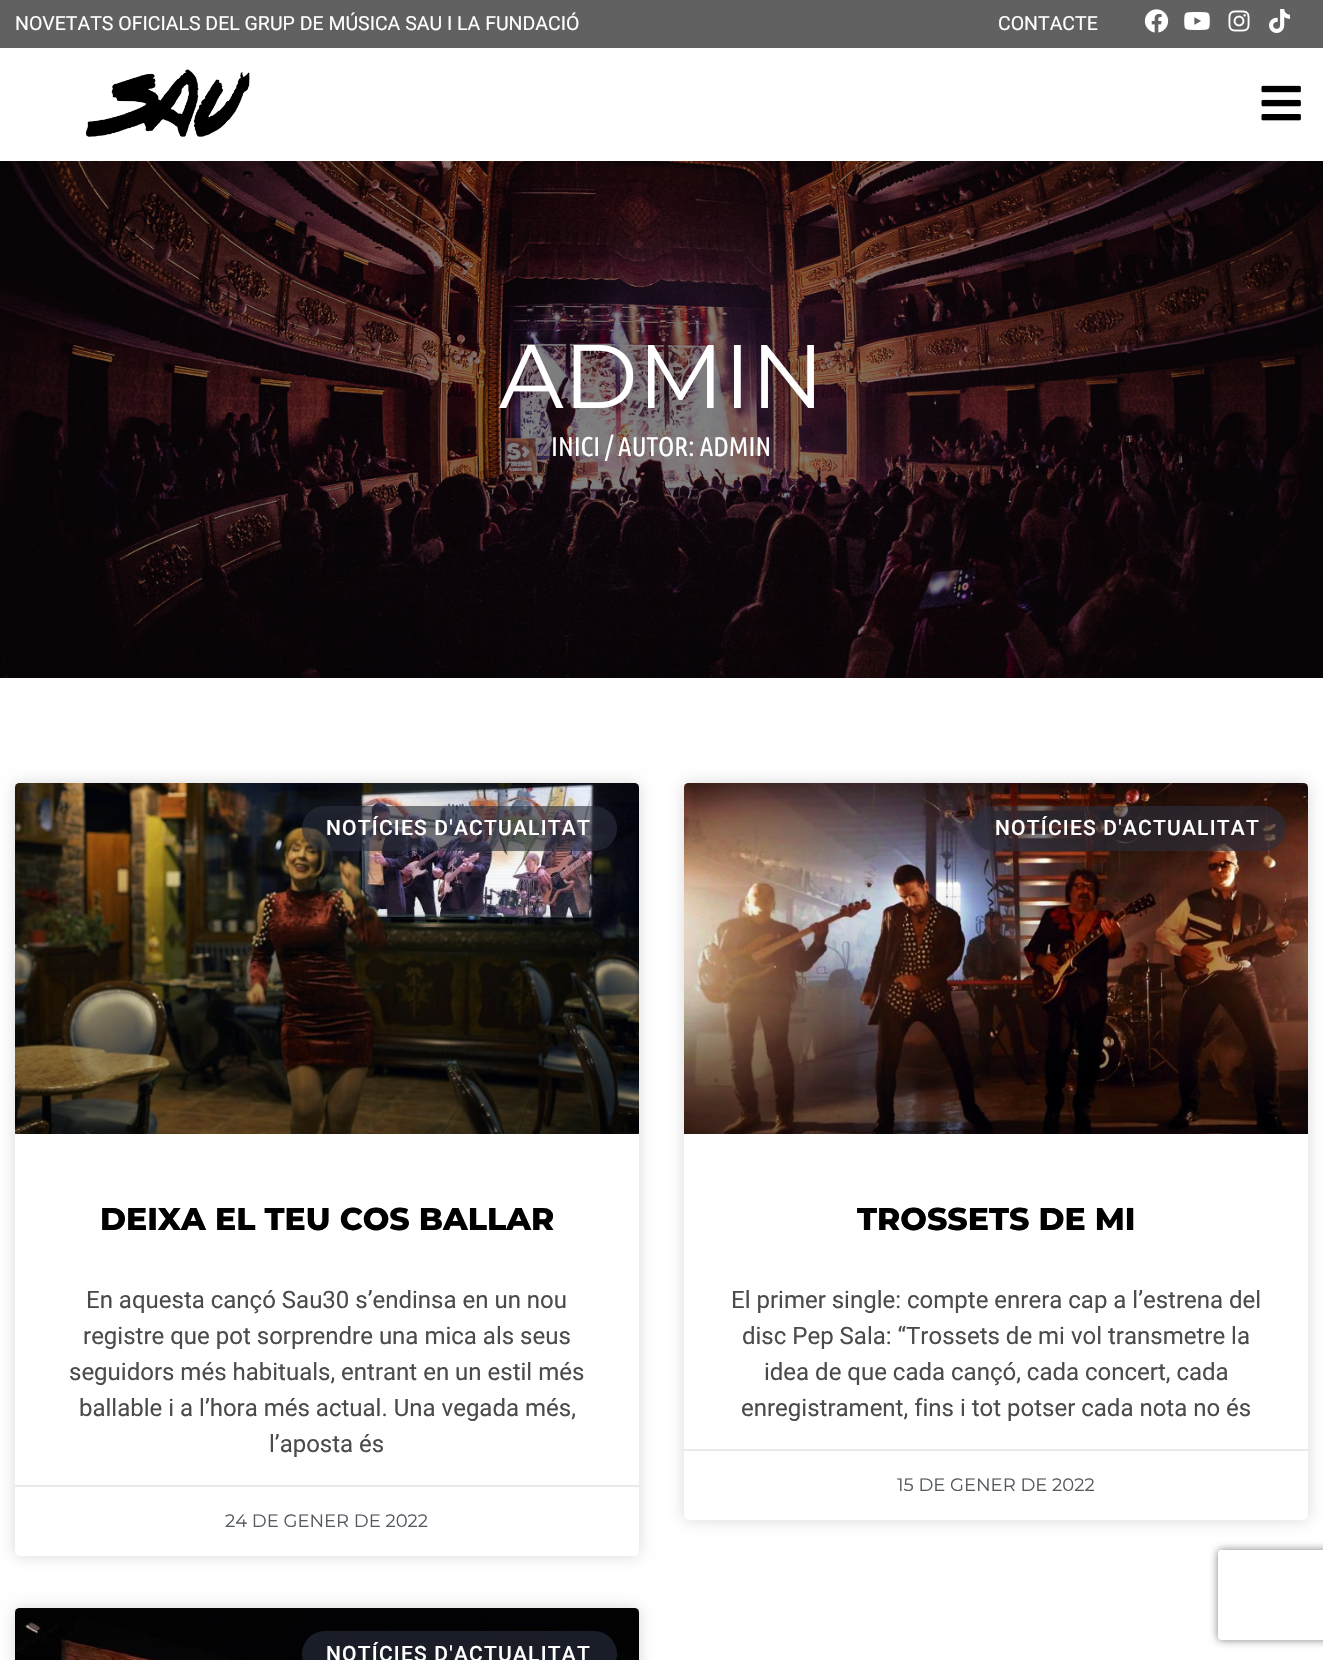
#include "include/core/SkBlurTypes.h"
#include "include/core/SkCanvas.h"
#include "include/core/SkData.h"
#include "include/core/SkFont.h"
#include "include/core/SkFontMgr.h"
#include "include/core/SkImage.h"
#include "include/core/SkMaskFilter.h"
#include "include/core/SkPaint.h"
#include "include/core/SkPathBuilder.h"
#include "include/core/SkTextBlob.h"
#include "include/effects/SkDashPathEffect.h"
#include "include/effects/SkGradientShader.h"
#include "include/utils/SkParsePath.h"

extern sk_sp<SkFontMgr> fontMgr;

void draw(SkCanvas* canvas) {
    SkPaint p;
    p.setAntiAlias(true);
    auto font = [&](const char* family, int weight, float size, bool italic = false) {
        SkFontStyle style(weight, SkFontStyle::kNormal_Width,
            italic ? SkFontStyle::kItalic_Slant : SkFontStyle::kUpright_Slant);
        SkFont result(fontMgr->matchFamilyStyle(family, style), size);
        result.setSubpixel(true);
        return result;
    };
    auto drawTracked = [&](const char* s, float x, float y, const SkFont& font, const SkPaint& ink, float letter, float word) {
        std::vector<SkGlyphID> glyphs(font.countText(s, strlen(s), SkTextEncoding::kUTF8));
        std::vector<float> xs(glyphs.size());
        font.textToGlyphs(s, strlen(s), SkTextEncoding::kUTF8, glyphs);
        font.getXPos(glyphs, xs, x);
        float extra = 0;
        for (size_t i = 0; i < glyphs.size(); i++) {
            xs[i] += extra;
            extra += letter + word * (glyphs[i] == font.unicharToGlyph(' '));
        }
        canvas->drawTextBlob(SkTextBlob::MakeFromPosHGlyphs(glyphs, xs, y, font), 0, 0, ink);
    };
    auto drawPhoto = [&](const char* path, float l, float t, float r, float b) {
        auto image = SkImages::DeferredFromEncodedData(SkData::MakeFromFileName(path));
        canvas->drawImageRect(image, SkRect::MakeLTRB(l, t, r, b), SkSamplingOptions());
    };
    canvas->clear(0xFFFFFFFF);
    p.setColor(0xFF616161);
    canvas->drawRect(SkRect::MakeLTRB(0, 0, 1323, 48), p);
    auto font1 = font("Roboto", 400, 19.5f);
    p.setColor(0xFFFFFFFF);
    canvas->drawString("NOVETATS OFICIALS DEL GRUP DE MÚSICA SAU I LA FUNDACIÓ", 15, 30, font1, p);
    canvas->drawString("CONTACTE", 998, 30, font1, p);
    drawPhoto("media/1.png", 1144, 9, 1169, 33);
    drawPhoto("media/2.png", 1184, 12, 1210, 30);
    drawPhoto("media/3.png", 1228, 10, 1250, 32);
    drawPhoto("media/4.png", 1269, 9, 1290, 33);
    drawPhoto("media/5.png", 86, 69, 250, 137);
    drawPhoto("media/6.png", 1261, 85, 1301, 121);
    drawPhoto("media/7.png", 0, 161, 1323, 678);
    auto font2 = font("Montserrat", 400, 90);
    canvas->drawString("ADMIN", 499, 408, font2, p);
    auto font3 = font("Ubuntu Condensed", 400, 27);
    canvas->drawString("INICI / AUTOR: ADMIN", 551, 456, font3, p);
    p.setColor(0x26000000);
    p.setMaskFilter(SkMaskFilter::MakeBlur(kNormal_SkBlurStyle, 7.5f));
    canvas->drawRoundRect(SkRect::MakeLTRB(15, 783, 639, 1556), 5, 5, p);
    p.setMaskFilter(nullptr);
    p.setColor(0xFFFFFFFF);
    canvas->drawRoundRect(SkRect::MakeLTRB(15, 783, 639, 1556), 5, 5, p);
    drawPhoto("media/8.png", 15, 783, 639, 1134);
    {
        const SkColor colors[] = {0x59000000, 0x00000000};
        const float stops[] = {0, 0.75f};
        const SkPoint ends[] = {{327, 1134}, {327, 783}};
        p.setShader(SkGradientShader::MakeLinear(ends, colors, stops, 2, SkTileMode::kClamp));
        p.setAlpha(255);
    }
    canvas->drawRect(SkRect::MakeLTRB(15, 887, 639, 1134), p);
    p.setShader(nullptr);
    p.setColor(0x9E292D3B);
    canvas->drawRoundRect(SkRect::MakeLTRB(302, 806, 617, 851), 22.5f, 22.5f, p);
    auto font4 = font("Roboto", 500, 21);
    p.setColor(0xFFFFFFFF);
    drawTracked("NOTÍCIES D'ACTUALITAT", 326, 835, font4, p, 1.2f, 0);
    auto font5 = font("Montserrat", 800, 31.5f);
    p.setColor(0xFF000000);
    canvas->drawString("DEIXA EL TEU COS BALLAR", 100, 1230, font5, p);
    auto font6 = font("Roboto", 400, 24);
    p.setColor(0xFF4B4B4B);
    {
        const struct { const char* s; float x, y; } items[] = {
            {"En aquesta cançó Sau30 s’endinsa en un nou", 86, 1308},
            {"registre que pot sorprendre una mica als seus", 83, 1344},
            {"seguidors més habituals, entrant en un estil més", 69, 1380},
            {"ballable i a l’hora més actual. Una vegada més,", 79, 1416},
            {"l’aposta és", 269, 1452},
        };
        for (auto [s, x, y] : items) {
            canvas->drawString(s, x, y, font6, p);
        }
    }
    p.setColor(0xFFEAEAEA);
    canvas->drawRect(SkRect::MakeLTRB(15, 1485, 639, 1487), p);
    auto font7 = font("Montserrat", 400, 18);
    p.setColor(0xFF54595F);
    canvas->drawString("24 DE GENER DE 2022", 225, 1527, font7, p);
    p.setColor(0x26000000);
    p.setMaskFilter(SkMaskFilter::MakeBlur(kNormal_SkBlurStyle, 7.5f));
    canvas->drawRoundRect(SkRect::MakeLTRB(684, 783, 1308, 1520), 5, 5, p);
    p.setMaskFilter(nullptr);
    p.setColor(0xFFFFFFFF);
    canvas->drawRoundRect(SkRect::MakeLTRB(684, 783, 1308, 1520), 5, 5, p);
    drawPhoto("media/9.png", 684, 783, 1308, 1134);
    {
        const SkColor colors[] = {0x59000000, 0x00000000};
        const float stops[] = {0, 0.75f};
        const SkPoint ends[] = {{996, 1134}, {996, 783}};
        p.setShader(SkGradientShader::MakeLinear(ends, colors, stops, 2, SkTileMode::kClamp));
        p.setAlpha(255);
    }
    canvas->drawRect(SkRect::MakeLTRB(684, 887, 1308, 1134), p);
    p.setShader(nullptr);
    p.setColor(0x9E292D3B);
    canvas->drawRoundRect(SkRect::MakeLTRB(971, 806, 1286, 851), 22.5f, 22.5f, p);
    p.setColor(0xFFFFFFFF);
    drawTracked("NOTÍCIES D'ACTUALITAT", 995, 835, font4, p, 1.2f, 0);
    p.setColor(0xFF000000);
    canvas->drawString("TROSSETS DE MI", 857, 1230, font5, p);
    p.setColor(0xFF4B4B4B);
    {
        const struct { const char* s; float x, y; } items[] = {
            {"El primer single: compte enrera cap a l’estrena del", 731, 1308},
            {"disc Pep Sala: “Trossets de mi vol transmetre la", 742, 1344},
            {"idea de que cada cançó, cada concert, cada", 764, 1380},
            {"enregistrament, fins i tot potser cada nota no és", 741, 1416},
        };
        for (auto [s, x, y] : items) {
            canvas->drawString(s, x, y, font6, p);
        }
    }
    p.setColor(0xFFEAEAEA);
    canvas->drawRect(SkRect::MakeLTRB(684, 1449, 1308, 1451), p);
    p.setColor(0xFF54595F);
    canvas->drawString("15 DE GENER DE 2022", 897, 1491, font7, p);
    p.setColor(0x26000000);
    p.setMaskFilter(SkMaskFilter::MakeBlur(kNormal_SkBlurStyle, 7.5f));
    canvas->drawRoundRect(SkRect::MakeLTRB(15, 1608, 639, 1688), 5, 5, p);
    p.setMaskFilter(nullptr);
    drawPhoto("media/10.png", 15, 1608, 639, 1660);
    p.setColor(0x9E292D3B);
    canvas->drawRoundRect(SkRect::MakeLTRB(302, 1631, 617, 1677), 23, 23, p);
    p.setColor(0xFFFFFFFF);
    drawTracked("NOTÍCIES D'ACTUALITAT", 326, 1661, font4, p, 1.2f, 0);
    canvas->save();
    canvas->clipPath(SkPathBuilder(SkPathFillType::kEvenOdd).moveTo(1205, 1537).lineTo(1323, 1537).lineTo(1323, 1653).lineTo(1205, 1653).close().moveTo(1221, 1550).lineTo(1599, 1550).cubicTo(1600.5f, 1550, 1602, 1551.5f, 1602, 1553).lineTo(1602, 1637).cubicTo(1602, 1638.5f, 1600.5f, 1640, 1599, 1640).lineTo(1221, 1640).cubicTo(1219.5f, 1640, 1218, 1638.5f, 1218, 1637).lineTo(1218, 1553).cubicTo(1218, 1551.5f, 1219.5f, 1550, 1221, 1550).close().detach(), true);
    p.setColor(0xFF808080);
    p.setMaskFilter(SkMaskFilter::MakeBlur(kNormal_SkBlurStyle, 4));
    canvas->drawRoundRect(SkRect::MakeLTRB(1218, 1550, 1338, 1640), 3, 3, p);
    p.setMaskFilter(nullptr);
    canvas->restore();
}
